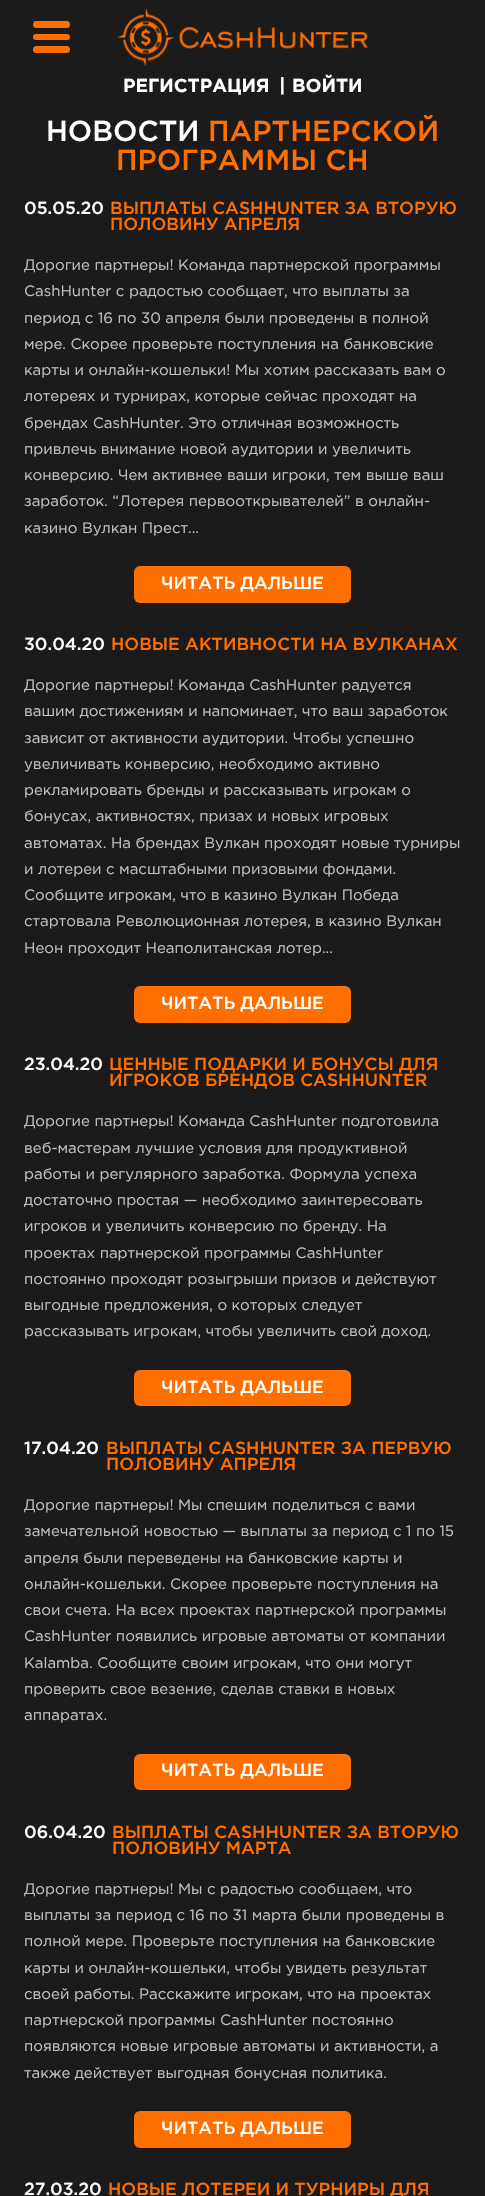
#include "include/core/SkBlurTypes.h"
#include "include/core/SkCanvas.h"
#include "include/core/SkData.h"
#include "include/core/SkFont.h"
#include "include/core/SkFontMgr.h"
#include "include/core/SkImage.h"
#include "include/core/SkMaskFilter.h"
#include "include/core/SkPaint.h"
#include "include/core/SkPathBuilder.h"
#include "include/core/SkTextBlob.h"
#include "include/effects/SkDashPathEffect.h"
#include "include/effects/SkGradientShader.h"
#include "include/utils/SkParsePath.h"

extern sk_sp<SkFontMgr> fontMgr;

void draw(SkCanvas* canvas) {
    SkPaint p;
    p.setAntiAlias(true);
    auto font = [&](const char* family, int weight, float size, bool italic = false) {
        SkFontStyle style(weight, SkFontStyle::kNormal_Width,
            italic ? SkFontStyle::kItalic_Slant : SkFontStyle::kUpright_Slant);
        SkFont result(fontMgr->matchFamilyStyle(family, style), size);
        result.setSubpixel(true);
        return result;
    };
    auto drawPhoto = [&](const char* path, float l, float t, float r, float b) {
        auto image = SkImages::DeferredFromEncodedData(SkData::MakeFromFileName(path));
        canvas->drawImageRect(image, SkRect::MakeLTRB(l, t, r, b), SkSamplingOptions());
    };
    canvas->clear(0xFF1B1B1B);
    p.setColor(0xFFFF6F00);
    canvas->drawRoundRect(SkRect::MakeLTRB(33, 21, 70, 28), 3.5f, 3.5f, p);
    canvas->drawRoundRect(SkRect::MakeLTRB(33, 34, 70, 40), 3, 3, p);
    canvas->drawRoundRect(SkRect::MakeLTRB(33, 46, 70, 53), 3.5f, 3.5f, p);
    drawPhoto("media/1.png", 117, 8, 368, 67);
    auto font1 = font("Gotham", 700, 18.75f);
    p.setColor(0xFFFFFFFF);
    {
        const struct { const char* s; float x, y; } items[] = {
            {"РЕГИСТРАЦИЯ", 123, 92},
            {"|", 279, 92},
            {"ВОЙТИ", 292, 92},
        };
        for (auto [s, x, y] : items) {
            canvas->drawString(s, x, y, font1, p);
        }
    }
    auto font2 = font("Gotham", 500, 28.75f);
    canvas->drawString("НОВОСТИ", 46, 141, font2, p);
    p.setColor(0xFFFF6F00);
    canvas->drawString("ПАРТНЕРСКОЙ", 208, 141, font2, p);
    canvas->drawString("ПРОГРАММЫ CH", 116, 170, font2, p);
    auto font3 = font("Gotham", 500, 17.5f);
    p.setColor(0xFFFFFFFF);
    canvas->drawString("05.05.20", 24, 214, font3, p);
    p.setColor(0xFFFF6F00);
    canvas->drawString("ВЫПЛАТЫ CASHHUNTER ЗА ВТОРУЮ", 110, 214, font3, p);
    canvas->drawString("ПОЛОВИНУ АПРЕЛЯ", 110, 230, font3, p);
    auto font4 = font("Gotham", 400, 15);
    p.setColor(0xFFC2C2C2);
    {
        const struct { const char* s; float x, y; } items[] = {
            {"Дорогие партнеры! Команда партнерской программы", 24, 270},
            {"CashHunter с радостью сообщает, что выплаты за", 24, 296},
            {"период с 16 по 30 апреля были проведены в полной", 24, 323},
            {"мере. Скорее проверьте поступления на банковские", 24, 349},
            {"карты и онлайн-кошельки! Мы хотим рассказать вам о", 24, 375},
            {"лотереях и турнирах, которые сейчас проходят на", 24, 401},
            {"брендах CashHunter. Это отличная возможность", 24, 428},
            {"привлечь внимание новой аудитории и увеличить", 24, 454},
            {"конверсию. Чем активнее ваши игроки, тем выше ваш", 24, 480},
            {"заработок. “Лотерея первооткрывателей” в онлайн-", 24, 506},
            {"казино Вулкан Прест...", 24, 533},
        };
        for (auto [s, x, y] : items) {
            canvas->drawString(s, x, y, font4, p);
        }
    }
    p.setColor(0xFFFF6F00);
    canvas->drawRoundRect(SkRect::MakeLTRB(134, 566, 351, 603), 6, 6, p);
    p.setColor(0xFFFFFFFF);
    canvas->drawString("ЧИТАТЬ ДАЛЬШЕ", 161, 589, font3, p);
    canvas->drawString("30.04.20", 24, 650, font3, p);
    p.setColor(0xFFFF6F00);
    canvas->drawString("НОВЫЕ АКТИВНОСТИ НА ВУЛКАНАХ", 111, 650, font3, p);
    p.setColor(0xFFC2C2C2);
    {
        const struct { const char* s; float x, y; } items[] = {
            {"Дорогие партнеры! Команда CashHunter радуется", 24, 690},
            {"вашим достижениям и напоминает, что ваш заработок", 24, 716},
            {"зависит от активности аудитории. Чтобы успешно", 24, 743},
            {"увеличивать конверсию, необходимо активно", 24, 769},
            {"рекламировать бренды и рассказывать игрокам о", 24, 795},
            {"бонусах, активностях, призах и новых игровых", 24, 821},
            {"автоматах. На брендах Вулкан проходят новые турниры", 24, 848},
            {"и лотереи с масштабными призовыми фондами.", 24, 874},
            {"Сообщите игрокам, что в казино Вулкан Победа", 24, 900},
            {"стартовала Революционная лотерея, в казино Вулкан", 24, 926},
            {"Неон проходит Неаполитанская лотер...", 24, 953},
        };
        for (auto [s, x, y] : items) {
            canvas->drawString(s, x, y, font4, p);
        }
    }
    p.setColor(0xFFFF6F00);
    canvas->drawRoundRect(SkRect::MakeLTRB(134, 986, 351, 1023), 6, 6, p);
    p.setColor(0xFFFFFFFF);
    canvas->drawString("ЧИТАТЬ ДАЛЬШЕ", 161, 1009, font3, p);
    canvas->drawString("23.04.20", 24, 1070, font3, p);
    p.setColor(0xFFFF6F00);
    canvas->drawString("ЦЕННЫЕ ПОДАРКИ И БОНУСЫ ДЛЯ", 109, 1070, font3, p);
    canvas->drawString("ИГРОКОВ БРЕНДОВ CASHHUNTER", 109, 1086, font3, p);
    p.setColor(0xFFC2C2C2);
    {
        const struct { const char* s; float x, y; } items[] = {
            {"Дорогие партнеры! Команда CashHunter подготовила", 24, 1126},
            {"веб-мастерам лучшие условия для продуктивной", 24, 1153},
            {"работы и регулярного заработка. Формула успеха", 24, 1179},
            {"достаточно простая — необходимо заинтересовать", 24, 1205},
            {"игроков и увеличить конверсию по бренду. На", 24, 1231},
            {"проектах партнерской программы CashHunter", 24, 1258},
            {"постоянно проходят розыгрыши призов и действуют", 24, 1284},
            {"выгодные предложения, о которых следует", 24, 1310},
            {"рассказывать игрокам, чтобы увеличить свой доход.", 24, 1336},
        };
        for (auto [s, x, y] : items) {
            canvas->drawString(s, x, y, font4, p);
        }
    }
    p.setColor(0xFFFF6F00);
    canvas->drawRoundRect(SkRect::MakeLTRB(134, 1370, 351, 1406), 6, 6, p);
    p.setColor(0xFFFFFFFF);
    canvas->drawString("ЧИТАТЬ ДАЛЬШЕ", 161, 1393, font3, p);
    canvas->drawString("17.04.20", 24, 1454, font3, p);
    p.setColor(0xFFFF6F00);
    canvas->drawString("ВЫПЛАТЫ CASHHUNTER ЗА ПЕРВУЮ", 106, 1454, font3, p);
    canvas->drawString("ПОЛОВИНУ АПРЕЛЯ", 106, 1470, font3, p);
    p.setColor(0xFFC2C2C2);
    {
        const struct { const char* s; float x, y; } items[] = {
            {"Дорогие партнеры! Мы спешим поделиться с вами", 24, 1510},
            {"замечательной новостью — выплаты за период с 1 по 15", 24, 1536},
            {"апреля были переведены на банковские карты и", 24, 1563},
            {"онлайн-кошельки. Скорее проверьте поступления на", 24, 1589},
            {"свои счета. На всех проектах партнерской программы", 24, 1615},
            {"CashHunter появились игровые автоматы от компании", 24, 1641},
            {"Kalamba. Сообщите своим игрокам, что они могут", 24, 1668},
            {"проверить свое везение, сделав ставки в новых", 24, 1694},
            {"аппаратах.", 24, 1720},
        };
        for (auto [s, x, y] : items) {
            canvas->drawString(s, x, y, font4, p);
        }
    }
    p.setColor(0xFFFF6F00);
    canvas->drawRoundRect(SkRect::MakeLTRB(134, 1754, 351, 1790), 6, 6, p);
    p.setColor(0xFFFFFFFF);
    canvas->drawString("ЧИТАТЬ ДАЛЬШЕ", 161, 1776, font3, p);
    canvas->drawString("06.04.20", 24, 1838, font3, p);
    p.setColor(0xFFFF6F00);
    canvas->drawString("ВЫПЛАТЫ CASHHUNTER ЗА ВТОРУЮ", 112, 1838, font3, p);
    canvas->drawString("ПОЛОВИНУ МАРТА", 112, 1854, font3, p);
    p.setColor(0xFFC2C2C2);
    {
        const struct { const char* s; float x, y; } items[] = {
            {"Дорогие партнеры! Мы с радостью сообщаем, что", 24, 1894},
            {"выплаты за период с 16 по 31 марта были проведены в", 24, 1920},
            {"полной мере. Проверьте поступления на банковские", 24, 1946},
            {"карты и онлайн-кошельки, чтобы увидеть результат", 24, 1973},
            {"своей работы. Расскажите игрокам, что на проектах", 24, 1999},
            {"партнерской программы CashHunter постоянно", 24, 2025},
            {"появляются новые игровые автоматы и активности, а", 24, 2051},
            {"также действует выгодная бонусная политика.", 24, 2078},
        };
        for (auto [s, x, y] : items) {
            canvas->drawString(s, x, y, font4, p);
        }
    }
    p.setColor(0xFFFF6F00);
    canvas->drawRoundRect(SkRect::MakeLTRB(134, 2111, 351, 2148), 6, 6, p);
    p.setColor(0xFFFFFFFF);
    canvas->drawString("ЧИТАТЬ ДАЛЬШЕ", 161, 2134, font3, p);
    canvas->drawString("27.03.20", 24, 2195, font3, p);
    p.setColor(0xFFFF6F00);
    canvas->drawString("НОВЫЕ ЛОТЕРЕИ И ТУРНИРЫ ДЛЯ", 108, 2195, font3, p);
}
